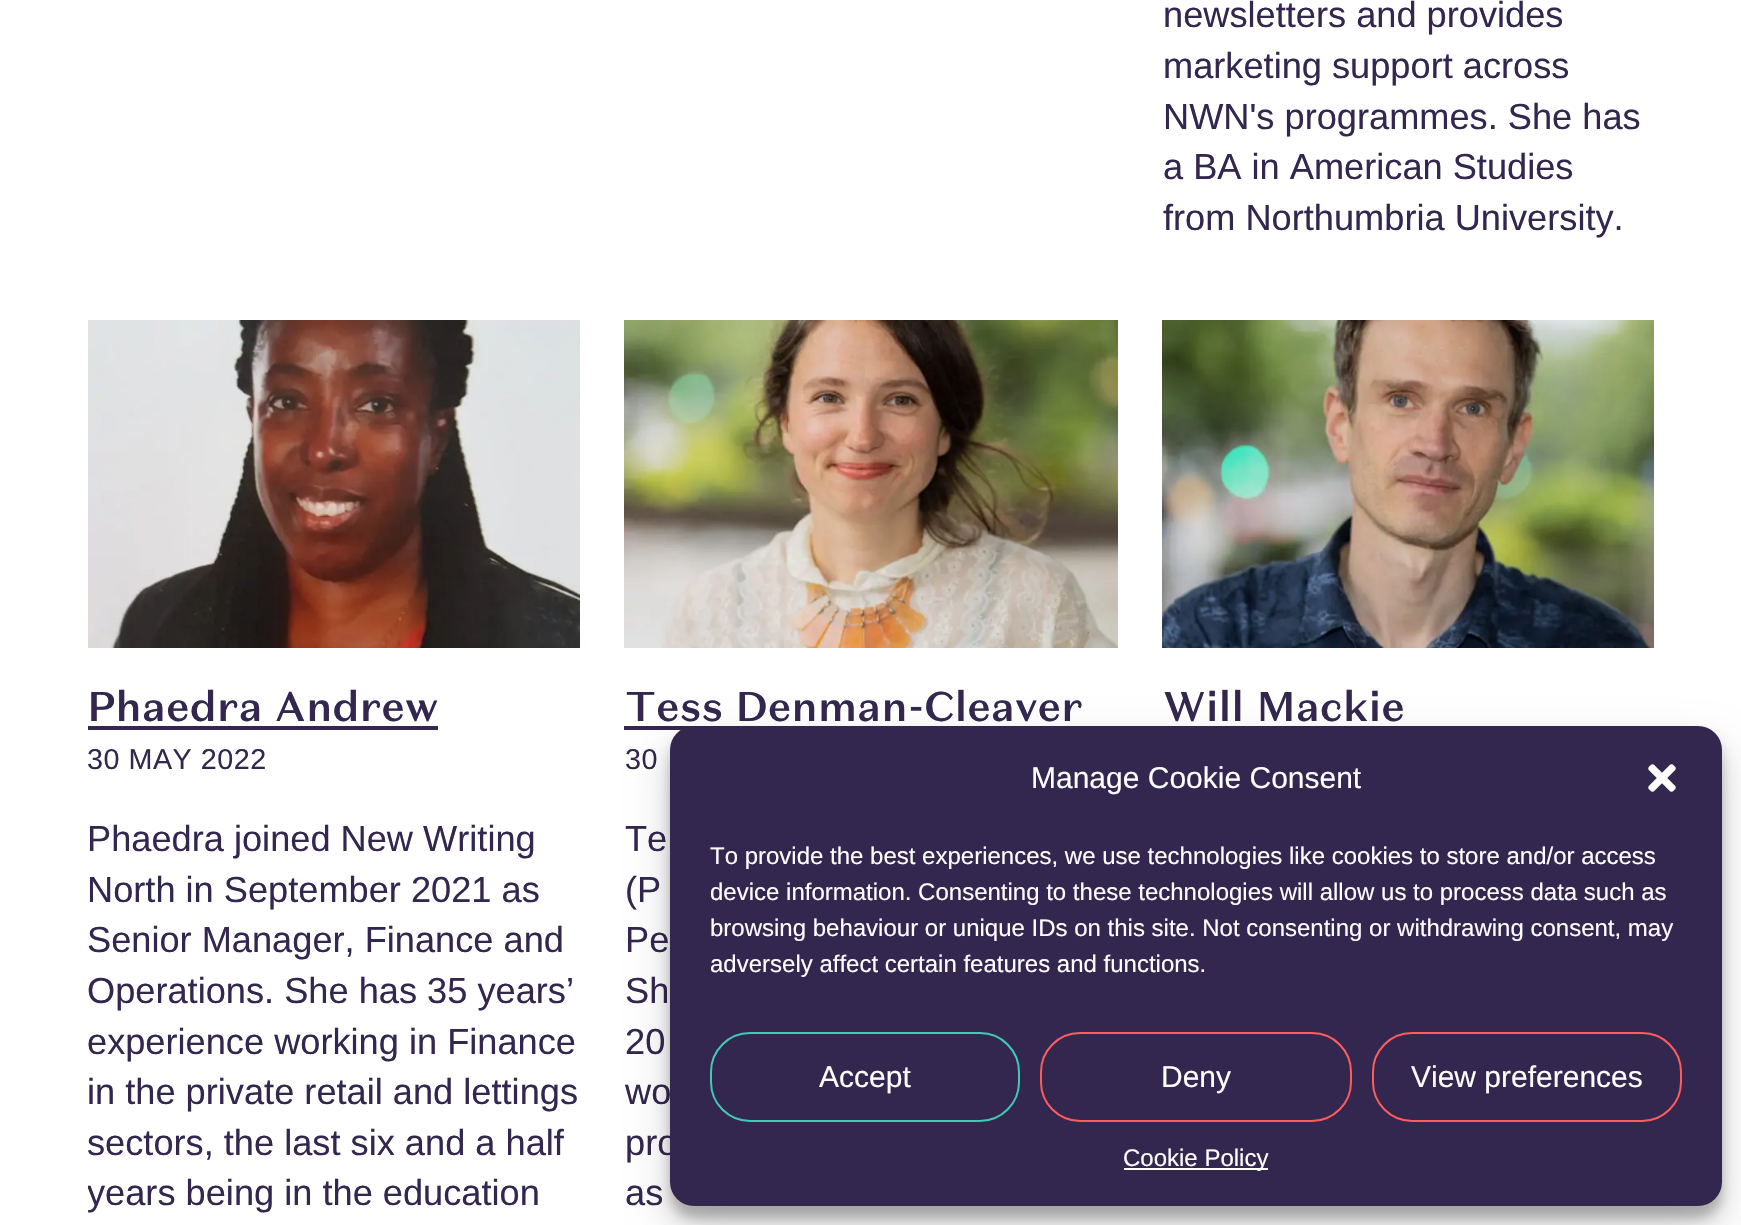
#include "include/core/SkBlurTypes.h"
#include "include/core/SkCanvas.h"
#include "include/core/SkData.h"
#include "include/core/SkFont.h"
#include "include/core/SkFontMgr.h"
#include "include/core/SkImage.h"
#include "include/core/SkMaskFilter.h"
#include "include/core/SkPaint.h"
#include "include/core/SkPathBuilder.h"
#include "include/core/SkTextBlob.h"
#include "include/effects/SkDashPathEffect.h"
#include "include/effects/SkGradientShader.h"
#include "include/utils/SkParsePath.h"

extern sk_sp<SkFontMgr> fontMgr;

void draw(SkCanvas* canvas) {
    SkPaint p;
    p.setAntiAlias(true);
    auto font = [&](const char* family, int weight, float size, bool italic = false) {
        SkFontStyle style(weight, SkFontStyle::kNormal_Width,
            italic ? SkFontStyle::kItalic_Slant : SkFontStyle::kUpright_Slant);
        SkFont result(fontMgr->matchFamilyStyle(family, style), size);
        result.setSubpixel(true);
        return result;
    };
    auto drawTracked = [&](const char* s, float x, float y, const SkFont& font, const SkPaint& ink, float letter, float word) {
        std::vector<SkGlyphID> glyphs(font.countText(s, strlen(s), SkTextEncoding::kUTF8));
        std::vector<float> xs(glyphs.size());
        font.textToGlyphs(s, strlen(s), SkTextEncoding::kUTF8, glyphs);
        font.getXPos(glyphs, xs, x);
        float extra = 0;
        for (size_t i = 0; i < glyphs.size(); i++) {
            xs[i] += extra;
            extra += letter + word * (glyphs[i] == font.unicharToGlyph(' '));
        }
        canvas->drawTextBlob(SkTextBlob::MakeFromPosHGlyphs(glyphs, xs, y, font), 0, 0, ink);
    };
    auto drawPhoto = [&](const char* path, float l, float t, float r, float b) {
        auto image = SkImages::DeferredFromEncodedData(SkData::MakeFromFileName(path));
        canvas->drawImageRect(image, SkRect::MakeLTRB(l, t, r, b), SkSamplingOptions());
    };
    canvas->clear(0xFFFFFFFF);
    auto font1 = font("Liberation Sans", 400, 36.2f);
    p.setColor(0xFF34274F);
    {
        const struct { const char* s; float x, y; } items[] = {
            {"newsletters and provides", 1163, 27},
            {"marketing support across", 1163, 78},
            {"NWN's programmes. She has", 1163, 129},
            {"a BA in American Studies", 1163, 179},
            {"from Northumbria University.", 1163, 230},
        };
        for (auto [s, x, y] : items) {
            canvas->drawString(s, x, y, font1, p);
        }
    }
    drawPhoto("media/1.png", 88, 320, 580, 648);
    auto font2 = font("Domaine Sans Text", 500, 41.6f);
    canvas->drawString("Phaedra Andrew", 87, 721, font2, p);
    canvas->drawRect(SkRect::MakeLTRB(88, 726, 438, 730), p);
    auto font3 = font("Liberation Sans", 400, 28.75f);
    drawTracked("30 MAY 2022", 87, 769, font3, p, 0.5f, 0);
    {
        const struct { const char* s; float x, y; } items[] = {
            {"Phaedra joined New Writing", 87, 851},
            {"North in September 2021 as", 87, 902},
            {"Senior Manager, Finance and", 87, 952},
            {"Operations. She has 35 years’", 87, 1003},
            {"experience working in Finance", 87, 1054},
            {"in the private retail and lettings", 87, 1104},
            {"sectors, the last six and a half", 87, 1155},
        };
        for (auto [s, x, y] : items) {
            canvas->drawString(s, x, y, font1, p);
        }
    }
    canvas->save();
    canvas->clipRect(SkRect::MakeLTRB(88, 0, 1654, 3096));
    canvas->drawString("years being in the education", 87, 1205, font1, p);
    canvas->restore();
    drawPhoto("media/2.png", 624, 320, 1118, 648);
    canvas->drawString("Tess Denman-Cleaver", 625, 721, font2, p);
    canvas->drawRect(SkRect::MakeLTRB(624, 726, 694, 730), p);
    drawTracked("30", 625, 769, font3, p, 0.5f, 0);
    {
        const struct { const char* s; float x, y; } items[] = {
            {"Te", 625, 851},
            {"(P", 625, 902},
            {"Pe", 625, 952},
            {"Sh", 625, 1003},
            {"20", 625, 1054},
            {"wo", 625, 1104},
            {"pro", 625, 1155},
            {"as", 625, 1205},
        };
        for (auto [s, x, y] : items) {
            canvas->drawString(s, x, y, font1, p);
        }
    }
    drawPhoto("media/3.png", 1162, 320, 1654, 648);
    canvas->drawString("Will Mackie", 1163, 721, font2, p);
    p.setColor(0x3B000000);
    p.setMaskFilter(SkMaskFilter::MakeBlur(kNormal_SkBlurStyle, 6));
    canvas->drawRoundRect(SkRect::MakeLTRB(670, 738, 1722, 1218), 24, 24, p);
    p.setMaskFilter(nullptr);
    p.setColor(0x30000000);
    p.setMaskFilter(SkMaskFilter::MakeBlur(kNormal_SkBlurStyle, 20));
    canvas->drawRoundRect(SkRect::MakeLTRB(670, 746, 1722, 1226), 24, 24, p);
    p.setMaskFilter(nullptr);
    p.setColor(0xFF34274F);
    canvas->drawRoundRect(SkRect::MakeLTRB(670, 726, 1722, 1206), 24, 24, p);
    auto font4 = font("Liberation Sans", 400, 30);
    p.setColor(0xFFFFFFFF);
    canvas->drawString("Manage Cookie Consent", 1031, 788, font4, p);
    drawPhoto("media/4.png", 1648, 764, 1676, 792);
    auto font5 = font("Liberation Sans", 400, 24);
    {
        const struct { const char* s; float x, y; } items[] = {
            {"To provide the best experiences, we use technologies like cookies to store and/or access", 710, 864},
            {"device information. Consenting to these technologies will allow us to process data such as", 710, 900},
            {"browsing behaviour or unique IDs on this site. Not consenting or withdrawing consent, may", 710, 936},
            {"adversely affect certain features and functions.", 710, 972},
        };
        for (auto [s, x, y] : items) {
            canvas->drawString(s, x, y, font5, p);
        }
    }
    p.setStyle(SkPaint::kStroke_Style);
    p.setStrokeWidth(2);
    p.setColor(0xFF41C9B5);
    canvas->drawRoundRect(SkRect::MakeLTRB(711, 1033, 1019, 1121), 39, 39, p);
    p.setStyle(SkPaint::kFill_Style);
    p.setColor(0xFFFFFFFF);
    canvas->drawString("Accept", 819, 1087, font4, p);
    p.setStyle(SkPaint::kStroke_Style);
    p.setColor(0xFFFF5C5C);
    canvas->drawRoundRect(SkRect::MakeLTRB(1041, 1033, 1351, 1121), 39, 39, p);
    p.setStyle(SkPaint::kFill_Style);
    p.setColor(0xFFFFFFFF);
    canvas->drawString("Deny", 1161, 1087, font4, p);
    p.setStyle(SkPaint::kStroke_Style);
    p.setColor(0xFFFF5C5C);
    canvas->drawRoundRect(SkRect::MakeLTRB(1373, 1033, 1681, 1121), 39, 39, p);
    p.setStyle(SkPaint::kFill_Style);
    p.setColor(0xFFFFFFFF);
    canvas->drawString("View preferences", 1411, 1087, font4, p);
    canvas->drawRect(SkRect::MakeLTRB(1124, 1168, 1268, 1170), p);
    canvas->drawString("Cookie Policy", 1123, 1166, font5, p);
}
